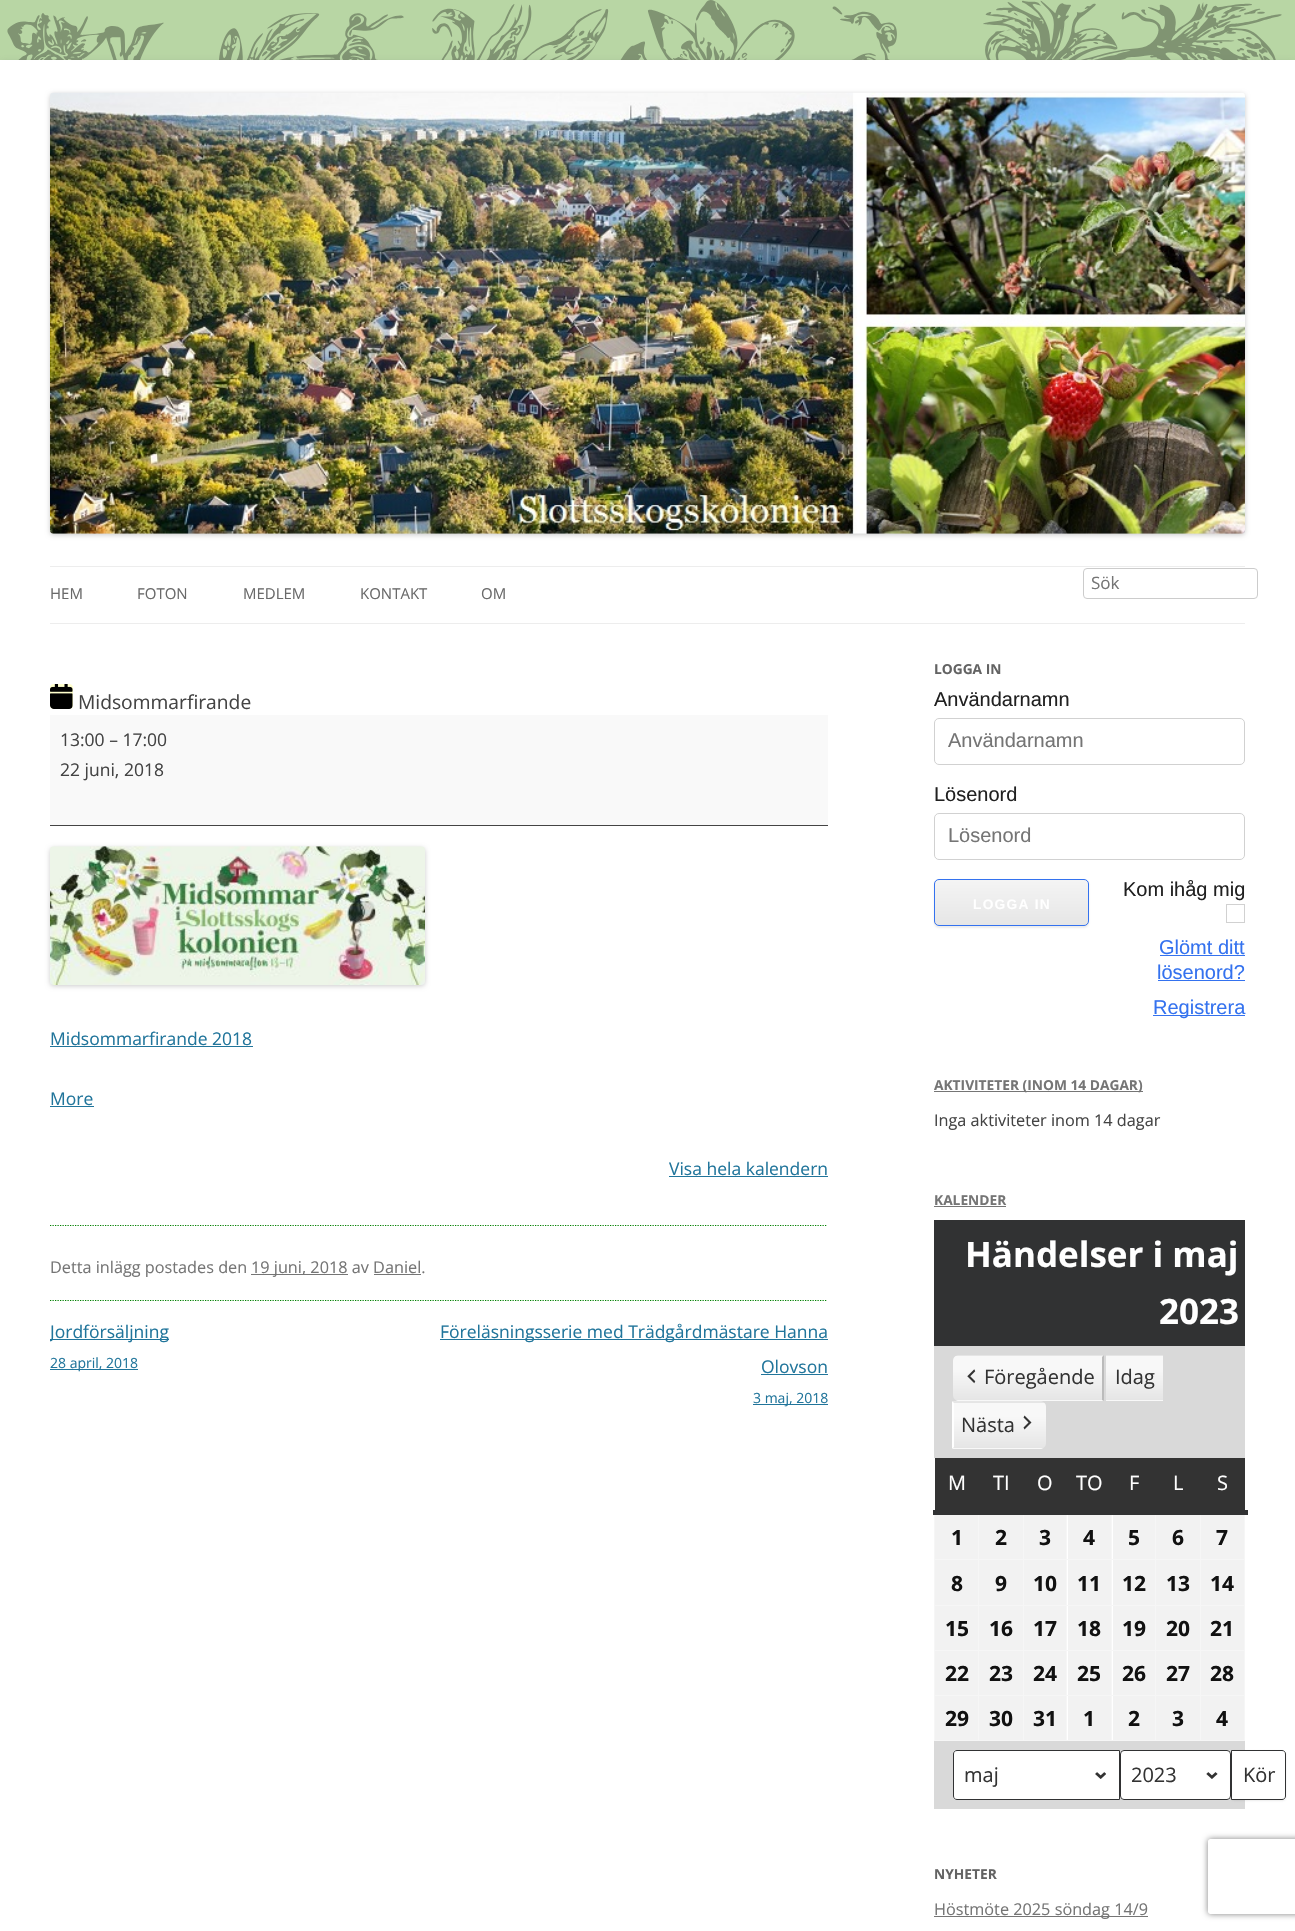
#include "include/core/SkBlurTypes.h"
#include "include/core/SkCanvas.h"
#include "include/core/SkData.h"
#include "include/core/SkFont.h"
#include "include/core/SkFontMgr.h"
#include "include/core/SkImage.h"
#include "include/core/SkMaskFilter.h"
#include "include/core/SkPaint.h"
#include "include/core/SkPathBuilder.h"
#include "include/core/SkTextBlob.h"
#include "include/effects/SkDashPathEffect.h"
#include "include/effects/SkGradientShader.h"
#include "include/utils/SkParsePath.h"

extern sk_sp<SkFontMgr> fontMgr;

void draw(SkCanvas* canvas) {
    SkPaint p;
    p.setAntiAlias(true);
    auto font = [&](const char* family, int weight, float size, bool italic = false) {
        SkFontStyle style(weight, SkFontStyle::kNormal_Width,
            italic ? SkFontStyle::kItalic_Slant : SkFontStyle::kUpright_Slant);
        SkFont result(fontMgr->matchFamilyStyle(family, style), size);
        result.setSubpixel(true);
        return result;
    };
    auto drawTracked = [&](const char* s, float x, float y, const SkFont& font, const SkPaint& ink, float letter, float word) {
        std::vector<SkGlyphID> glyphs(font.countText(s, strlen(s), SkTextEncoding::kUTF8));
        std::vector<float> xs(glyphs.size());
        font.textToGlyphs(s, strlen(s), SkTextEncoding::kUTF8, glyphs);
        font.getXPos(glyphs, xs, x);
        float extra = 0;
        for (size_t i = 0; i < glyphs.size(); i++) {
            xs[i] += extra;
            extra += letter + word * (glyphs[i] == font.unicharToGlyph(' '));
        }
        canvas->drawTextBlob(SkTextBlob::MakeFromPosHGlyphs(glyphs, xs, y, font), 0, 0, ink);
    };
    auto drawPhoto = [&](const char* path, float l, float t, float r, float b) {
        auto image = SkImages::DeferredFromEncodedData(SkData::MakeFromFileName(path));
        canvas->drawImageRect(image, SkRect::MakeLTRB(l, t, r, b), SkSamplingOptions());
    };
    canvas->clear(0xFFB8D6A4);
    drawPhoto("media/1.png", 7, 0, 1282, 60);
    p.setColor(0x4D646464);
    p.setMaskFilter(SkMaskFilter::MakeBlur(kNormal_SkBlurStyle, 4));
    canvas->drawRect(SkRect::MakeLTRB(0, 63, 1295, 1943), p);
    p.setMaskFilter(nullptr);
    p.setColor(0xFFFFFFFF);
    canvas->drawRect(SkRect::MakeLTRB(0, 60, 1295, 1931), p);
    p.setColor(0x33000000);
    p.setMaskFilter(SkMaskFilter::MakeBlur(kNormal_SkBlurStyle, 2.5f));
    canvas->drawRoundRect(SkRect::MakeLTRB(50, 94, 1245, 535), 4, 4, p);
    p.setMaskFilter(nullptr);
    drawPhoto("media/2.png", 50, 92, 1245, 534);
    p.setColor(0xFFEDEDED);
    canvas->drawRect(SkRect::MakeLTRB(50, 566, 1245, 567), p);
    canvas->drawRect(SkRect::MakeLTRB(50, 623, 1245, 624), p);
    p.setStyle(SkPaint::kStroke_Style);
    p.setStrokeWidth(1);
    p.setColor(0xFFCCCCCC);
    canvas->drawRoundRect(SkRect::MakeLTRB(1083.5f, 568.5f, 1257.5f, 598.5f), 3.5f, 3.5f, p);
    auto font1 = font("Open Sans", 400, 17);
    p.setStyle(SkPaint::kFill_Style);
    p.setColor(0xFF757575);
    canvas->drawString("Sök", 1091, 589, font1, p);
    auto font2 = font("Open Sans", 400, 15);
    p.setColor(0xFF6A6A6A);
    {
        const struct { const char* s; float x, y; } items[] = {
            {"HEM", 50, 599},
            {"FOTON", 137, 599},
            {"MEDLEM", 243, 599},
            {"KONTAKT", 360, 599},
            {"OM", 481, 599},
        };
        for (auto [s, x, y] : items) {
            canvas->drawString(s, x, y, font2, p);
        }
    }
    p.setStyle(SkPaint::kStroke_Style);
    p.setStrokeWidth(1.2f);
    p.setColor(0xFF008000);
    p.setPathEffect(SkDashPathEffect::Make({{1.25f, 1.25f}}, 0));
    canvas->drawPath(SkPathBuilder().moveTo(50, 1300.5f).lineTo(827.5f, 1300.5f).detach(), p);
    p.setPathEffect(nullptr);
    p.setStyle(SkPaint::kFill_Style);
    p.setColor(0xFFFFFFCC);
    canvas->drawRoundRect(SkRect::MakeLTRB(50, 684, 73, 709), 4, 4, p);
    drawPhoto("media/3.png", 50, 684, 73, 709);
    auto font3 = font("Open Sans", 400, 19.25f);
    p.setColor(0xFF444444);
    canvas->drawString("Midsommarfirande", 78, 709, font3, p);
    p.setStyle(SkPaint::kStroke_Style);
    p.setColor(0xFF008000);
    p.setPathEffect(SkDashPathEffect::Make({{1.25f, 1.25f}}, 0));
    canvas->drawPath(SkPathBuilder().moveTo(50, 1225.5f).lineTo(827.5f, 1225.5f).detach(), p);
    p.setPathEffect(nullptr);
    p.setStyle(SkPaint::kFill_Style);
    p.setColor(0xFFF9F9F9);
    canvas->drawRect(SkRect::MakeLTRB(50, 715, 828, 825), p);
    p.setColor(0xFF444444);
    canvas->drawRect(SkRect::MakeLTRB(50, 825, 828, 826), p);
    auto font4 = font("Open Sans", 400, 17.5f);
    canvas->drawString("13:00 – 17:00", 60, 746, font4, p);
    canvas->drawString("22 juni, 2018", 60, 776, font4, p);
    p.setColor(0x33000000);
    p.setMaskFilter(SkMaskFilter::MakeBlur(kNormal_SkBlurStyle, 2.5f));
    canvas->drawRoundRect(SkRect::MakeLTRB(50, 848, 425, 986), 4, 4, p);
    p.setMaskFilter(nullptr);
    drawPhoto("media/4.png", 50, 846, 425, 985);
    p.setColor(0xFF21759B);
    canvas->drawString("Midsommarfirande 2018", 50, 1045, font4, p);
    canvas->drawRect(SkRect::MakeLTRB(50, 1046, 253, 1047), p);
    canvas->drawString("More", 50, 1105, font4, p);
    canvas->drawRect(SkRect::MakeLTRB(50, 1106, 94, 1107), p);
    canvas->drawString("Visa hela kalendern", 669, 1175, font4, p);
    canvas->drawRect(SkRect::MakeLTRB(669, 1176, 828, 1177), p);
    auto font5 = font("Open Sans", 400, 16.25f);
    p.setColor(0xFF757575);
    canvas->drawString("Detta inlägg postades den", 50, 1273, font5, p);
    canvas->drawRect(SkRect::MakeLTRB(251, 1274, 348, 1275), p);
    canvas->drawString("19 juni, 2018 av Daniel.", 251, 1273, font5, p);
    canvas->drawRect(SkRect::MakeLTRB(374, 1274, 421, 1275), p);
    p.setColor(0xFF21759B);
    canvas->drawRect(SkRect::MakeLTRB(50, 1339, 169, 1340), p);
    canvas->save();
    canvas->clipRect(SkRect::MakeLTRB(50, 1314, 828, 1413));
    canvas->drawString("Jordförsäljning", 50, 1338, font4, p);
    canvas->restore();
    canvas->drawRect(SkRect::MakeLTRB(50, 1369, 138, 1370), p);
    auto font6 = font("Open Sans", 400, 14);
    canvas->drawString("28 april, 2018", 50, 1368, font6, p);
    canvas->drawRect(SkRect::MakeLTRB(440, 1339, 828, 1340), p);
    canvas->drawString("Föreläsningsserie med Trädgårdmästare Hanna", 440, 1338, font4, p);
    canvas->drawString("Olovson", 761, 1373, font4, p);
    canvas->drawRect(SkRect::MakeLTRB(761, 1374, 828, 1375), p);
    canvas->drawRect(SkRect::MakeLTRB(753, 1404, 828, 1405), p);
    canvas->drawString("3 maj, 2018", 753, 1403, font6, p);
    auto font7 = font("Open Sans", 700, 13.75f);
    p.setColor(0xFF636363);
    canvas->drawString("LOGGA IN", 934, 674, font7, p);
    auto font8 = font("Liberation Sans", 400, 20);
    p.setColor(0xFF212121);
    canvas->drawString("Användarnamn", 934, 706, font8, p);
    p.setStyle(SkPaint::kStroke_Style);
    p.setStrokeWidth(1);
    p.setColor(0xFFD1D1D1);
    canvas->drawRoundRect(SkRect::MakeLTRB(934.5f, 718.5f, 1244.5f, 764.5f), 4.5f, 4.5f, p);
    p.setStyle(SkPaint::kFill_Style);
    p.setColor(0xFF757575);
    canvas->drawString("Användarnamn", 948, 747, font8, p);
    p.setColor(0xFF212121);
    canvas->drawString("Lösenord", 934, 801, font8, p);
    p.setStyle(SkPaint::kStroke_Style);
    p.setColor(0xFFD1D1D1);
    canvas->drawRoundRect(SkRect::MakeLTRB(934.5f, 813.5f, 1244.5f, 859.5f), 4.5f, 4.5f, p);
    p.setStyle(SkPaint::kFill_Style);
    p.setColor(0xFF757575);
    canvas->drawString("Lösenord", 948, 842, font8, p);
    p.setColor(0x1A404040);
    p.setMaskFilter(SkMaskFilter::MakeBlur(kNormal_SkBlurStyle, 1));
    canvas->drawRoundRect(SkRect::MakeLTRB(934, 880, 1089, 928), 5, 5, p);
    p.setMaskFilter(nullptr);
    canvas->save();
    canvas->clipPath(SkPathBuilder().moveTo(939, 879).lineTo(1084, 879).cubicTo(1087, 879, 1089, 881, 1089, 884).lineTo(1089, 921).cubicTo(1089, 924, 1087, 926, 1084, 926).lineTo(939, 926).cubicTo(936, 926, 934, 924, 934, 921).lineTo(934, 884).cubicTo(934, 881, 936, 879, 939, 879).close().detach(), true);
    {
        const SkColor colors[] = {0xFFF4F4F4, 0xFFE6E6E6};
        const float stops[] = {0, 1};
        const SkPoint ends[] = {{1011, 880}, {1011, 925}};
        p.setShader(SkGradientShader::MakeLinear(ends, colors, stops, 2, SkTileMode::kClamp));
        p.setAlpha(255);
    }
    canvas->drawRect(SkRect::MakeLTRB(934, 880, 1089, 925), p);
    canvas->restore();
    p.setStyle(SkPaint::kStroke_Style);
    p.setShader(nullptr);
    p.setColor(0xFF3472EF);
    canvas->drawRoundRect(SkRect::MakeLTRB(934.5f, 879.5f, 1088.5f, 925.5f), 4.5f, 4.5f, p);
    auto font9 = font("Liberation Sans", 700, 13.75f);
    p.setStyle(SkPaint::kFill_Style);
    p.setColor(0xFFFFFFFF);
    drawTracked("LOGGA IN", 973, 909, font9, p, 1.25f, 0);
    p.setColor(0xFF212121);
    canvas->drawString("Kom ihåg mig", 1123, 896, font8, p);
    p.setStyle(SkPaint::kStroke_Style);
    p.setColor(0xFFD1D1D1);
    canvas->drawRect(SkRect::MakeLTRB(1226.5f, 904.5f, 1244.5f, 922.5f), p);
    p.setStyle(SkPaint::kFill_Style);
    p.setColor(0xFF3472EF);
    canvas->drawString("Glömt ditt", 1159, 954, font8, p);
    canvas->drawRect(SkRect::MakeLTRB(1160, 955, 1245, 956), p);
    canvas->drawString("lösenord?", 1157, 979, font8, p);
    canvas->drawRect(SkRect::MakeLTRB(1158, 980, 1245, 981), p);
    canvas->drawRect(SkRect::MakeLTRB(1153, 1015, 1245, 1016), p);
    canvas->drawString("Registrera", 1153, 1014, font8, p);
    p.setColor(0xFF757575);
    canvas->drawRect(SkRect::MakeLTRB(934, 1091, 1143, 1092), p);
    canvas->drawString("AKTIVITETER (INOM 14 DAGAR)", 934, 1090, font7, p);
    p.setColor(0xFF444444);
    canvas->drawString("Inga aktiviteter inom 14 dagar", 934, 1126, font5, p);
    p.setColor(0xFF757575);
    canvas->drawString("KALENDER", 934, 1205, font7, p);
    canvas->drawRect(SkRect::MakeLTRB(934, 1206, 1006, 1207), p);
    p.setColor(0xFF313233);
    canvas->drawRect(SkRect::MakeLTRB(934, 1220, 1245, 1346), p);
    auto font10 = font("Open Sans", 700, 35);
    p.setColor(0xFFFFFFFF);
    canvas->drawString("Händelser i maj", 965, 1267, font10, p);
    canvas->drawString("2023", 1159, 1324, font10, p);
    p.setColor(0xFFD9D9D9);
    canvas->drawRect(SkRect::MakeLTRB(934, 1346, 1245, 1458), p);
    canvas->save();
    canvas->clipPath(SkPathBuilder().moveTo(959, 1355).lineTo(1104, 1355).lineTo(1104, 1401).lineTo(959, 1401).cubicTo(955.5f, 1401, 953, 1398.5f, 953, 1395).lineTo(953, 1361).cubicTo(953, 1357.5f, 955.5f, 1355, 959, 1355).close().detach(), true);
    {
        const SkColor colors[] = {0xFFE5E5E5, 0xFFF8F8F8};
        const float stops[] = {0, 0.7f};
        const SkPoint ends[] = {{1028, 1356}, {1028, 1313}};
        p.setShader(SkGradientShader::MakeLinear(ends, colors, stops, 2, SkTileMode::kClamp));
        p.setAlpha(255);
    }
    canvas->drawRect(SkRect::MakeLTRB(953, 1355, 1104, 1356), p);
    {
        const SkColor colors[] = {0xFFE5E5E5, 0xFFF8F8F8};
        const float stops[] = {0, 0.7f};
        const SkPoint ends[] = {{1028, 1400}, {1028, 1356}};
        p.setShader(SkGradientShader::MakeLinear(ends, colors, stops, 2, SkTileMode::kClamp));
        p.setAlpha(255);
    }
    canvas->drawRect(SkRect::MakeLTRB(953, 1356, 1103, 1400), p);
    {
        const SkColor colors[] = {0xFFE5E5E5, 0xFFF8F8F8};
        const float stops[] = {0, 0.7f};
        const SkPoint ends[] = {{1028, 1444}, {1028, 1400}};
        p.setShader(SkGradientShader::MakeLinear(ends, colors, stops, 2, SkTileMode::kClamp));
        p.setAlpha(255);
    }
    canvas->drawRect(SkRect::MakeLTRB(953, 1400, 1104, 1401), p);
    canvas->restore();
    p.setShader(nullptr);
    p.setColor(0xFFBBBBBB);
    canvas->drawPath(SkPathBuilder().moveTo(1104, 1355).lineTo(1104, 1401).lineTo(1102, 1400).lineTo(1102, 1357).close().detach(), p);
    drawPhoto("media/5.png", 967, 1369, 976, 1384);
    auto font11 = font("Open Sans", 400, 20);
    p.setColor(0xFF333333);
    canvas->drawString("Föregående", 984, 1384, font11, p);
    {
        const SkColor colors[] = {0xFFE5E5E5, 0xFFF8F8F8};
        const float stops[] = {0, 0.7f};
        const SkPoint ends[] = {{1134, 1356}, {1134, 1313}};
        p.setShader(SkGradientShader::MakeLinear(ends, colors, stops, 2, SkTileMode::kClamp));
        p.setAlpha(255);
    }
    canvas->drawRect(SkRect::MakeLTRB(1106, 1355, 1163, 1356), p);
    {
        const SkColor colors[] = {0xFFE5E5E5, 0xFFF8F8F8};
        const float stops[] = {0, 0.7f};
        const SkPoint ends[] = {{1134, 1400}, {1134, 1356}};
        p.setShader(SkGradientShader::MakeLinear(ends, colors, stops, 2, SkTileMode::kClamp));
        p.setAlpha(255);
    }
    canvas->drawRect(SkRect::MakeLTRB(1106, 1356, 1163, 1400), p);
    {
        const SkColor colors[] = {0xFFE5E5E5, 0xFFF8F8F8};
        const float stops[] = {0, 0.7f};
        const SkPoint ends[] = {{1134, 1444}, {1134, 1400}};
        p.setShader(SkGradientShader::MakeLinear(ends, colors, stops, 2, SkTileMode::kClamp));
        p.setAlpha(255);
    }
    canvas->drawRect(SkRect::MakeLTRB(1106, 1400, 1163, 1401), p);
    p.setShader(nullptr);
    p.setColor(0xFF333333);
    canvas->drawString("Idag", 1115, 1384, font11, p);
    canvas->save();
    canvas->clipPath(SkPathBuilder().moveTo(953, 1401).lineTo(1040, 1401).cubicTo(1043.5f, 1401, 1046, 1403.5f, 1046, 1407).lineTo(1046, 1443).cubicTo(1046, 1446.5f, 1043.5f, 1449, 1040, 1449).lineTo(953, 1449).close().detach(), true);
    {
        const SkColor colors[] = {0xFFE5E5E5, 0xFFF8F8F8};
        const float stops[] = {0, 0.7f};
        const SkPoint ends[] = {{999, 1403}, {999, 1358}};
        p.setShader(SkGradientShader::MakeLinear(ends, colors, stops, 2, SkTileMode::kClamp));
        p.setAlpha(255);
    }
    canvas->drawRect(SkRect::MakeLTRB(953, 1401, 1046, 1403), p);
    {
        const SkColor colors[] = {0xFFE5E5E5, 0xFFF8F8F8};
        const float stops[] = {0, 0.7f};
        const SkPoint ends[] = {{999, 1448}, {999, 1403}};
        p.setShader(SkGradientShader::MakeLinear(ends, colors, stops, 2, SkTileMode::kClamp));
        p.setAlpha(255);
    }
    canvas->drawRect(SkRect::MakeLTRB(953, 1403, 1046, 1448), p);
    {
        const SkColor colors[] = {0xFFE5E5E5, 0xFFF8F8F8};
        const float stops[] = {0, 0.7f};
        const SkPoint ends[] = {{999, 1493}, {999, 1448}};
        p.setShader(SkGradientShader::MakeLinear(ends, colors, stops, 2, SkTileMode::kClamp));
        p.setAlpha(255);
    }
    canvas->drawRect(SkRect::MakeLTRB(953, 1448, 1046, 1449), p);
    canvas->restore();
    p.setShader(nullptr);
    p.setColor(0xFFFFFFFF);
    canvas->drawPath(SkPathBuilder().moveTo(952, 1449).lineTo(954, 1447).lineTo(954, 1403).lineTo(952, 1401).close().detach(), p);
    p.setColor(0xFF333333);
    canvas->drawString("Nästa", 961, 1432, font11, p);
    drawPhoto("media/6.png", 1023, 1415, 1032, 1430);
    {
        const struct { float l, t, r, b; SkColor color; } items[] = {
            {1200, 1559, 1245, 1560, 0xFFF6F6F6},
            {1200, 1605, 1245, 1606, 0xFFF6F6F6},
            {1200, 1650, 1245, 1651, 0xFFF6F6F6},
            {1200, 1695, 1245, 1696, 0xFFF6F6F6},
            {1244, 1695, 1245, 1741, 0xFFF6F6F6},
            {1200, 1740, 1245, 1741, 0xFFF6F6F6},
            {1200, 1695, 1201, 1741, 0xFFF6F6F6},
            {1155, 1695, 1201, 1696, 0xFFF6F6F6},
            {1200, 1650, 1201, 1696, 0xFFF6F6F6},
            {1155, 1650, 1201, 1651, 0xFFF6F6F6},
            {1200, 1605, 1201, 1651, 0xFFF6F6F6},
            {1155, 1605, 1201, 1606, 0xFFF6F6F6},
            {1200, 1559, 1201, 1606, 0xFFF6F6F6},
            {1155, 1559, 1201, 1560, 0xFFF6F6F6},
            {1155, 1740, 1201, 1741, 0xFFF6F6F6},
            {1155, 1695, 1156, 1741, 0xFFF6F6F6},
            {1111, 1695, 1156, 1696, 0xFFF6F6F6},
            {1155, 1650, 1156, 1696, 0xFFF6F6F6},
            {1111, 1650, 1156, 1651, 0xFFF6F6F6},
            {1155, 1605, 1156, 1651, 0xFFF6F6F6},
            {1111, 1605, 1156, 1606, 0xFFF6F6F6},
            {1155, 1559, 1156, 1606, 0xFFF6F6F6},
            {1111, 1559, 1156, 1560, 0xFFF6F6F6},
            {1111, 1740, 1156, 1741, 0xFFF6F6F6},
            {1111, 1695, 1112, 1741, 0xFFF6F6F6},
            {1066, 1695, 1113, 1696, 0xFFF6F6F6},
            {1111, 1650, 1112, 1696, 0xFFF6F6F6},
            {1066, 1650, 1113, 1651, 0xFFF6F6F6},
            {1111, 1605, 1112, 1651, 0xFFF6F6F6},
            {1066, 1605, 1113, 1606, 0xFFF6F6F6},
            {1111, 1559, 1112, 1606, 0xFFF6F6F6},
            {1066, 1559, 1113, 1560, 0xFFF6F6F6},
            {1066, 1740, 1113, 1741, 0xFFF6F6F6},
            {1066, 1695, 1067, 1741, 0xFFF6F6F6},
            {1023, 1695, 1068, 1696, 0xFFF6F6F6},
            {1066, 1650, 1067, 1696, 0xFFF6F6F6},
            {1023, 1650, 1068, 1651, 0xFFF6F6F6},
            {1066, 1605, 1067, 1651, 0xFFF6F6F6},
            {1023, 1605, 1068, 1606, 0xFFF6F6F6},
            {1066, 1559, 1067, 1606, 0xFFF6F6F6},
            {1023, 1559, 1068, 1560, 0xFFF6F6F6},
            {1023, 1740, 1068, 1741, 0xFFF6F6F6},
            {1023, 1695, 1024, 1741, 0xFFF6F6F6},
            {978, 1695, 1024, 1696, 0xFFF6F6F6},
            {1023, 1650, 1024, 1696, 0xFFF6F6F6},
            {978, 1650, 1024, 1651, 0xFFF6F6F6},
            {1023, 1605, 1024, 1651, 0xFFF6F6F6},
            {978, 1605, 1024, 1606, 0xFFF6F6F6},
            {1023, 1559, 1024, 1606, 0xFFF6F6F6},
            {978, 1559, 1024, 1560, 0xFFF6F6F6},
            {978, 1740, 1024, 1741, 0xFFF6F6F6},
            {978, 1695, 979, 1741, 0xFFF6F6F6},
            {934, 1695, 979, 1696, 0xFFF6F6F6},
            {978, 1650, 979, 1696, 0xFFF6F6F6},
            {934, 1650, 979, 1651, 0xFFF6F6F6},
            {978, 1605, 979, 1651, 0xFFF6F6F6},
            {934, 1605, 979, 1606, 0xFFF6F6F6},
            {978, 1559, 979, 1606, 0xFFF6F6F6},
            {934, 1559, 979, 1560, 0xFFF6F6F6},
            {978, 1513, 979, 1560, 0xFFF6F6F6},
            {1023, 1513, 1024, 1560, 0xFFF6F6F6},
            {1066, 1513, 1067, 1560, 0xFFF6F6F6},
            {1111, 1513, 1112, 1560, 0xFFF6F6F6},
            {1155, 1513, 1156, 1560, 0xFFF6F6F6},
            {1200, 1513, 1201, 1560, 0xFFF6F6F6},
            {934, 1740, 979, 1741, 0xFFF6F6F6},
            {934, 1695, 935, 1741, 0xFFF6F6F6},
            {934, 1650, 935, 1696, 0xFFF6F6F6},
            {934, 1605, 935, 1651, 0xFFF6F6F6},
            {934, 1513, 935, 1606, 0xFFF6F6F6},
            {1244, 1650, 1245, 1696, 0xFFF6F6F6},
            {1244, 1605, 1245, 1651, 0xFFF6F6F6},
            {1244, 1513, 1245, 1606, 0xFFF6F6F6},
            {933, 1510, 1248, 1515, 0xFF313233},
            {935, 1458, 1245, 1510, 0xFF333333},
        };
        for (auto [l, t, r, b, color] : items) {
            p.setColor(color);
            canvas->drawRect(SkRect::MakeLTRB(l, t, r, b), p);
        }
    }
    p.setColor(0xFFFFFFFF);
    {
        const struct { const char* s; float x, y; } items[] = {
            {"M", 948, 1490},
            {"TI", 993, 1490},
            {"O", 1037, 1490},
            {"TO", 1076, 1490},
            {"F", 1129, 1490},
            {"L", 1173, 1490},
            {"S", 1217, 1490},
        };
        for (auto [s, x, y] : items) {
            canvas->drawString(s, x, y, font11, p);
        }
    }
    p.setColor(0xFFF2F2F2);
    canvas->drawRect(SkRect::MakeLTRB(935, 1515, 978, 1559), p);
    auto font12 = font("Open Sans", 700, 21);
    p.setColor(0xFF111111);
    canvas->drawString("1", 951, 1545, font12, p);
    p.setColor(0xFFF2F2F2);
    canvas->drawRect(SkRect::MakeLTRB(979, 1515, 1023, 1559), p);
    p.setColor(0xFF111111);
    canvas->drawString("2", 995, 1545, font12, p);
    p.setColor(0xFFF2F2F2);
    canvas->drawRect(SkRect::MakeLTRB(1024, 1515, 1066, 1559), p);
    p.setColor(0xFF111111);
    canvas->drawString("3", 1039, 1545, font12, p);
    p.setColor(0xFFF2F2F2);
    canvas->drawRect(SkRect::MakeLTRB(1068, 1515, 1111, 1559), p);
    p.setColor(0xFF111111);
    canvas->drawString("4", 1083, 1545, font12, p);
    p.setColor(0xFFF2F2F2);
    canvas->drawRect(SkRect::MakeLTRB(1113, 1515, 1155, 1559), p);
    p.setColor(0xFF111111);
    canvas->drawString("5", 1128, 1545, font12, p);
    p.setColor(0xFFF2F2F2);
    canvas->drawRect(SkRect::MakeLTRB(1156, 1515, 1200, 1559), p);
    p.setColor(0xFF111111);
    canvas->drawString("6", 1172, 1545, font12, p);
    p.setColor(0xFFF2F2F2);
    canvas->drawRect(SkRect::MakeLTRB(1201, 1515, 1244, 1559), p);
    p.setColor(0xFF111111);
    canvas->drawString("7", 1216, 1545, font12, p);
    p.setColor(0xFFF2F2F2);
    canvas->drawRect(SkRect::MakeLTRB(935, 1560, 978, 1605), p);
    p.setColor(0xFF111111);
    canvas->drawString("8", 951, 1591, font12, p);
    p.setColor(0xFFF2F2F2);
    canvas->drawRect(SkRect::MakeLTRB(979, 1560, 1023, 1605), p);
    p.setColor(0xFF111111);
    canvas->drawString("9", 995, 1591, font12, p);
    p.setColor(0xFFF2F2F2);
    canvas->drawRect(SkRect::MakeLTRB(1024, 1560, 1066, 1605), p);
    p.setColor(0xFF111111);
    canvas->drawString("10", 1033, 1591, font12, p);
    p.setColor(0xFFF2F2F2);
    canvas->drawRect(SkRect::MakeLTRB(1068, 1560, 1111, 1605), p);
    p.setColor(0xFF111111);
    canvas->drawString("11", 1077, 1591, font12, p);
    p.setColor(0xFFF2F2F2);
    canvas->drawRect(SkRect::MakeLTRB(1113, 1560, 1155, 1605), p);
    p.setColor(0xFF111111);
    canvas->drawString("12", 1122, 1591, font12, p);
    p.setColor(0xFFF2F2F2);
    canvas->drawRect(SkRect::MakeLTRB(1156, 1560, 1200, 1605), p);
    p.setColor(0xFF111111);
    canvas->drawString("13", 1166, 1591, font12, p);
    p.setColor(0xFFF2F2F2);
    canvas->drawRect(SkRect::MakeLTRB(1201, 1560, 1244, 1605), p);
    p.setColor(0xFF111111);
    canvas->drawString("14", 1210, 1591, font12, p);
    p.setColor(0xFFF2F2F2);
    canvas->drawRect(SkRect::MakeLTRB(935, 1606, 978, 1650), p);
    p.setColor(0xFF111111);
    canvas->drawString("15", 945, 1636, font12, p);
    p.setColor(0xFFF2F2F2);
    canvas->drawRect(SkRect::MakeLTRB(979, 1606, 1023, 1650), p);
    p.setColor(0xFF111111);
    canvas->drawString("16", 989, 1636, font12, p);
    p.setColor(0xFFF2F2F2);
    canvas->drawRect(SkRect::MakeLTRB(1024, 1606, 1066, 1650), p);
    p.setColor(0xFF111111);
    canvas->drawString("17", 1033, 1636, font12, p);
    p.setColor(0xFFF2F2F2);
    canvas->drawRect(SkRect::MakeLTRB(1068, 1606, 1111, 1650), p);
    p.setColor(0xFF111111);
    canvas->drawString("18", 1077, 1636, font12, p);
    p.setColor(0xFFF2F2F2);
    canvas->drawRect(SkRect::MakeLTRB(1113, 1606, 1155, 1650), p);
    p.setColor(0xFF111111);
    canvas->drawString("19", 1122, 1636, font12, p);
    p.setColor(0xFFF2F2F2);
    canvas->drawRect(SkRect::MakeLTRB(1156, 1606, 1200, 1650), p);
    p.setColor(0xFF111111);
    canvas->drawString("20", 1166, 1636, font12, p);
    p.setColor(0xFFF2F2F2);
    canvas->drawRect(SkRect::MakeLTRB(1201, 1606, 1244, 1650), p);
    p.setColor(0xFF111111);
    canvas->drawString("21", 1210, 1636, font12, p);
    p.setColor(0xFFF2F2F2);
    canvas->drawRect(SkRect::MakeLTRB(935, 1651, 978, 1695), p);
    p.setColor(0xFF111111);
    canvas->drawString("22", 945, 1681, font12, p);
    p.setColor(0xFFF2F2F2);
    canvas->drawRect(SkRect::MakeLTRB(979, 1651, 1023, 1695), p);
    p.setColor(0xFF111111);
    canvas->drawString("23", 989, 1681, font12, p);
    p.setColor(0xFFF2F2F2);
    canvas->drawRect(SkRect::MakeLTRB(1024, 1651, 1066, 1695), p);
    p.setColor(0xFF111111);
    canvas->drawString("24", 1033, 1681, font12, p);
    p.setColor(0xFFF2F2F2);
    canvas->drawRect(SkRect::MakeLTRB(1068, 1651, 1111, 1695), p);
    p.setColor(0xFF111111);
    canvas->drawString("25", 1077, 1681, font12, p);
    p.setColor(0xFFF2F2F2);
    canvas->drawRect(SkRect::MakeLTRB(1113, 1651, 1155, 1695), p);
    p.setColor(0xFF111111);
    canvas->drawString("26", 1122, 1681, font12, p);
    p.setColor(0xFFF2F2F2);
    canvas->drawRect(SkRect::MakeLTRB(1156, 1651, 1200, 1695), p);
    p.setColor(0xFF111111);
    canvas->drawString("27", 1166, 1681, font12, p);
    p.setColor(0xFFF2F2F2);
    canvas->drawRect(SkRect::MakeLTRB(1201, 1651, 1244, 1695), p);
    p.setColor(0xFF111111);
    canvas->drawString("28", 1210, 1681, font12, p);
    p.setColor(0xFFF2F2F2);
    canvas->drawRect(SkRect::MakeLTRB(935, 1696, 978, 1740), p);
    p.setColor(0xFF111111);
    canvas->drawString("29", 945, 1726, font12, p);
    p.setColor(0xFFF2F2F2);
    canvas->drawRect(SkRect::MakeLTRB(979, 1696, 1023, 1740), p);
    p.setColor(0xFF111111);
    canvas->drawString("30", 989, 1726, font12, p);
    p.setColor(0xFFF2F2F2);
    canvas->drawRect(SkRect::MakeLTRB(1024, 1696, 1066, 1740), p);
    p.setColor(0xFF111111);
    canvas->drawString("31", 1033, 1726, font12, p);
    p.setColor(0xFFF2F2F2);
    canvas->drawRect(SkRect::MakeLTRB(1068, 1696, 1111, 1740), p);
    p.setColor(0xFF111111);
    canvas->drawString("1", 1083, 1726, font12, p);
    p.setColor(0xFFF2F2F2);
    canvas->drawRect(SkRect::MakeLTRB(1113, 1696, 1155, 1740), p);
    p.setColor(0xFF111111);
    canvas->drawString("2", 1128, 1726, font12, p);
    p.setColor(0xFFF2F2F2);
    canvas->drawRect(SkRect::MakeLTRB(1156, 1696, 1200, 1740), p);
    p.setColor(0xFF111111);
    canvas->drawString("3", 1172, 1726, font12, p);
    p.setColor(0xFFF2F2F2);
    canvas->drawRect(SkRect::MakeLTRB(1201, 1696, 1244, 1740), p);
    p.setColor(0xFF111111);
    canvas->drawString("4", 1216, 1726, font12, p);
    p.setColor(0xFFD9D9D9);
    canvas->drawRect(SkRect::MakeLTRB(934, 1741, 1245, 1809), p);
    p.setColor(0xFFFFFFFF);
    canvas->drawPath(SkPathBuilder().moveTo(957, 1750).lineTo(1120, 1750).lineTo(1120, 1800).lineTo(957, 1800).cubicTo(955, 1800, 953, 1798, 953, 1796).lineTo(953, 1754).cubicTo(953, 1752, 955, 1750, 957, 1750).close().detach(), p);
    drawPhoto("media/7.png", 1095, 1772, 1106, 1779);
    p.setStyle(SkPaint::kStroke_Style);
    p.setColor(0xFF313233);
    canvas->drawPath(SkPathBuilder().moveTo(957, 1750.5f).lineTo(1119.5f, 1750.5f).lineTo(1119.5f, 1799.5f).lineTo(957, 1799.5f).cubicTo(955, 1799.5f, 953.5f, 1798, 953.5f, 1796).lineTo(953.5f, 1754).cubicTo(953.5f, 1752, 955, 1750.5f, 957, 1750.5f).close().detach(), p);
    p.setStyle(SkPaint::kFill_Style);
    p.setColor(0xFF333333);
    canvas->drawString("maj", 964, 1782, font11, p);
    p.setColor(0xFFFFFFFF);
    canvas->drawRoundRect(SkRect::MakeLTRB(1120, 1750, 1231, 1800), 4, 4, p);
    drawPhoto("media/8.png", 1206, 1772, 1218, 1779);
    p.setStyle(SkPaint::kStroke_Style);
    p.setColor(0xFF313233);
    canvas->drawRoundRect(SkRect::MakeLTRB(1120.5f, 1750.5f, 1230.5f, 1799.5f), 3.5f, 3.5f, p);
    p.setStyle(SkPaint::kFill_Style);
    p.setColor(0xFF333333);
    canvas->drawString("2023", 1131, 1782, font11, p);
    p.setColor(0x1A404040);
    p.setMaskFilter(SkMaskFilter::MakeBlur(kNormal_SkBlurStyle, 1));
    canvas->drawRoundRect(SkRect::MakeLTRB(1231, 1751, 1286, 1801), 4, 4, p);
    p.setMaskFilter(nullptr);
    p.setColor(0xFFFFFFFF);
    canvas->drawPath(SkPathBuilder().moveTo(1231.5f, 1750.5f).lineTo(1282, 1750.5f).cubicTo(1284, 1750.5f, 1285.5f, 1752, 1285.5f, 1754).lineTo(1285.5f, 1796).cubicTo(1285.5f, 1798, 1284, 1799.5f, 1282, 1799.5f).lineTo(1231.5f, 1799.5f).close().detach(), p);
    p.setStyle(SkPaint::kStroke_Style);
    p.setColor(0xFF313233);
    canvas->drawPath(SkPathBuilder().moveTo(1231.5f, 1750.5f).lineTo(1282, 1750.5f).cubicTo(1284, 1750.5f, 1285.5f, 1752, 1285.5f, 1754).lineTo(1285.5f, 1796).cubicTo(1285.5f, 1798, 1284, 1799.5f, 1282, 1799.5f).lineTo(1231.5f, 1799.5f).close().detach(), p);
    p.setStyle(SkPaint::kFill_Style);
    p.setColor(0xFF333333);
    canvas->drawString("Kör", 1243, 1782, font11, p);
    p.setColor(0xFF636363);
    canvas->drawString("NYHETER", 934, 1879, font7, p);
    p.setColor(0xFF757575);
    canvas->drawRect(SkRect::MakeLTRB(934, 1916, 1148, 1917), p);
    canvas->drawString("Höstmöte 2025 söndag 14/9", 934, 1915, font5, p);
    canvas->save();
    canvas->clipPath(SkPathBuilder(SkPathFillType::kEvenOdd).moveTo(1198, 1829).lineTo(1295, 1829).lineTo(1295, 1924).lineTo(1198, 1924).close().moveTo(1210.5f, 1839).lineTo(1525.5f, 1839).cubicTo(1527, 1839, 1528, 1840, 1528, 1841.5f).lineTo(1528, 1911.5f).cubicTo(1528, 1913, 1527, 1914, 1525.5f, 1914).lineTo(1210.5f, 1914).cubicTo(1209, 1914, 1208, 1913, 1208, 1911.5f).lineTo(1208, 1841.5f).cubicTo(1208, 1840, 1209, 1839, 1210.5f, 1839).close().detach(), true);
    p.setColor(0xFF808080);
    p.setMaskFilter(SkMaskFilter::MakeBlur(kNormal_SkBlurStyle, 3));
    canvas->drawRoundRect(SkRect::MakeLTRB(1208, 1839, 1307, 1914), 2.5f, 2.5f, p);
    p.setMaskFilter(nullptr);
    canvas->restore();
}
